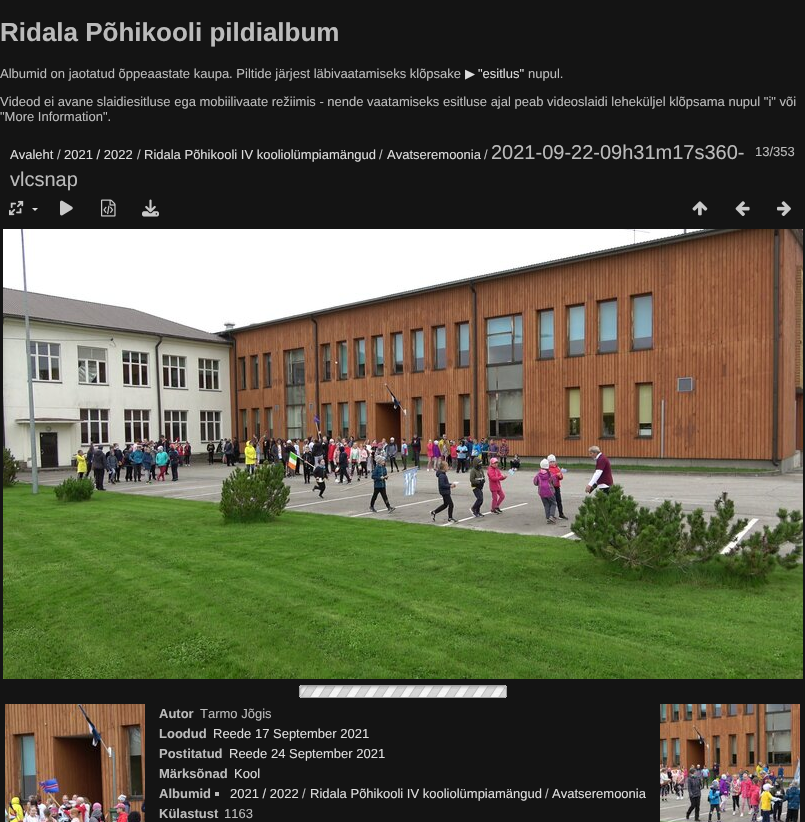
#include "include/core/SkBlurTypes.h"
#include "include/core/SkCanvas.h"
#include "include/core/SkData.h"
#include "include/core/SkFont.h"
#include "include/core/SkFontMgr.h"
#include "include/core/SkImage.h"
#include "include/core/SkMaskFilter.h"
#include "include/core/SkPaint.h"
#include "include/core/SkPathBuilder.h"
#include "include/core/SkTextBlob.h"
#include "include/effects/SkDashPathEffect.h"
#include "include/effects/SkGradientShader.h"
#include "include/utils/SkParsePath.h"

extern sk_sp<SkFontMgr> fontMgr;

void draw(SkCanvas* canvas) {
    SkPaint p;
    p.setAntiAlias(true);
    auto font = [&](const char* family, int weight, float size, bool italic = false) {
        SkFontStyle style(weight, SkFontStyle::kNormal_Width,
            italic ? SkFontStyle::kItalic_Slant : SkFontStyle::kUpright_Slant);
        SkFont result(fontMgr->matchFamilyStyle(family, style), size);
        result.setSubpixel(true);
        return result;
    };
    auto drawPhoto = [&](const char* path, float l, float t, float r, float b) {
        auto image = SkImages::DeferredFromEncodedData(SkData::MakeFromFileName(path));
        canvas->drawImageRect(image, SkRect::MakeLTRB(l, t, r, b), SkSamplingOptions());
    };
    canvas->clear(0xFF141414);
    auto font1 = font("Liberation Sans", 700, 26);
    p.setColor(0xFFBBBBBB);
    canvas->drawString("Ridala Põhikooli pildialbum", 0, 41, font1, p);
    auto font2 = font("Liberation Sans", 400, 13);
    canvas->drawString("Albumid on jaotatud õppeaastate kaupa. Piltide järjest läbivaatamiseks klõpsake", 0, 78, font2, p);
    auto font3 = font("DejaVu Sans", 400, 13);
    p.setColor(0xFFDDDDDD);
    canvas->drawString("▶", 465, 78, font3, p);
    canvas->drawString("\"esitlus\"", 478, 78, font2, p);
    p.setColor(0xFFBBBBBB);
    {
        const struct { const char* s; float x, y; } items[] = {
            {"nupul.", 528, 78},
            {"Videod ei avane slaidiesitluse ega mobiilivaate režiimis - nende vaatamiseks esitluse ajal peab videoslaidi leheküljel klõpsama nupul \"i\" või", 0, 106},
            {"\"More Information\".", 0, 121},
        };
        for (auto [s, x, y] : items) {
            canvas->drawString(s, x, y, font2, p);
        }
    }
    p.setColor(0xFFDDDDDD);
    canvas->drawString("Avaleht", 10, 159, font2, p);
    p.setColor(0xFFBBBBBB);
    canvas->drawString("/", 57, 159, font2, p);
    p.setColor(0xFFDDDDDD);
    canvas->drawString("2021 / 2022", 64, 159, font2, p);
    p.setColor(0xFFBBBBBB);
    canvas->drawString("/", 137, 159, font2, p);
    p.setColor(0xFFDDDDDD);
    canvas->drawString("Ridala Põhikooli IV kooliolümpiamängud", 144, 159, font2, p);
    p.setColor(0xFFBBBBBB);
    canvas->drawString("/", 379, 159, font2, p);
    p.setColor(0xFFDDDDDD);
    canvas->drawString("Avatseremoonia", 387, 159, font2, p);
    p.setColor(0xFFBBBBBB);
    canvas->drawString("/", 484, 159, font2, p);
    auto font4 = font("Liberation Sans", 400, 20);
    canvas->drawString("2021-09-22-09h31m17s360-", 491, 159, font4, p);
    canvas->drawString("vlcsnap", 10, 186, font4, p);
    canvas->drawString("13/353", 755, 156, font2, p);
    drawPhoto("media/1.png", 9, 200, 24, 216);
    p.setColor(0xFFDDDDDD);
    canvas->drawPath(SkPathBuilder().moveTo(32, 208).lineTo(38, 208).lineTo(35, 211).close().detach(), p);
    drawPhoto("media/2.png", 60, 200, 73, 216);
    drawPhoto("media/3.png", 101, 199, 116, 217);
    drawPhoto("media/4.png", 142, 199, 159, 217);
    drawPhoto("media/5.png", 692, 201, 708, 216);
    drawPhoto("media/6.png", 735, 201, 750, 216);
    drawPhoto("media/7.png", 777, 201, 791, 216);
    drawPhoto("media/8.png", 3, 229, 803, 679);
    drawPhoto("media/9.png", 299, 685, 507, 698);
    drawPhoto("media/10.png", 5, 704, 145, 822);
    drawPhoto("media/11.png", 660, 704, 800, 822);
    auto font5 = font("Liberation Sans", 700, 13);
    p.setColor(0xFFBBBBBB);
    canvas->drawString("Autor", 159, 718, font5, p);
    canvas->drawString("Tarmo Jõgis", 200, 718, font2, p);
    canvas->drawString("Loodud", 159, 738, font5, p);
    p.setColor(0xFFDDDDDD);
    canvas->drawString("Reede 17 September 2021", 213, 738, font2, p);
    p.setColor(0xFFBBBBBB);
    canvas->drawString("Postitatud", 159, 758, font5, p);
    p.setColor(0xFFDDDDDD);
    canvas->drawString("Reede 24 September 2021", 229, 758, font2, p);
    p.setColor(0xFFBBBBBB);
    canvas->drawString("Märksõnad", 159, 778, font5, p);
    p.setColor(0xFFDDDDDD);
    canvas->drawString("Kool", 234, 778, font2, p);
    p.setColor(0xFFBBBBBB);
    canvas->drawString("Albumid", 159, 798, font5, p);
    canvas->drawRect(SkRect::MakeLTRB(215, 792, 219, 796), p);
    p.setColor(0xFFDDDDDD);
    canvas->drawString("2021 / 2022", 230, 798, font2, p);
    p.setColor(0xFFBBBBBB);
    canvas->drawString("/", 302, 798, font2, p);
    p.setColor(0xFFDDDDDD);
    canvas->drawString("Ridala Põhikooli IV kooliolümpiamängud", 310, 798, font2, p);
    p.setColor(0xFFBBBBBB);
    canvas->drawString("/", 545, 798, font2, p);
    p.setColor(0xFFDDDDDD);
    canvas->drawString("Avatseremoonia", 552, 798, font2, p);
    p.setColor(0xFFBBBBBB);
    canvas->drawString("Külastust", 159, 818, font5, p);
    canvas->drawString("1163", 224, 818, font2, p);
}
